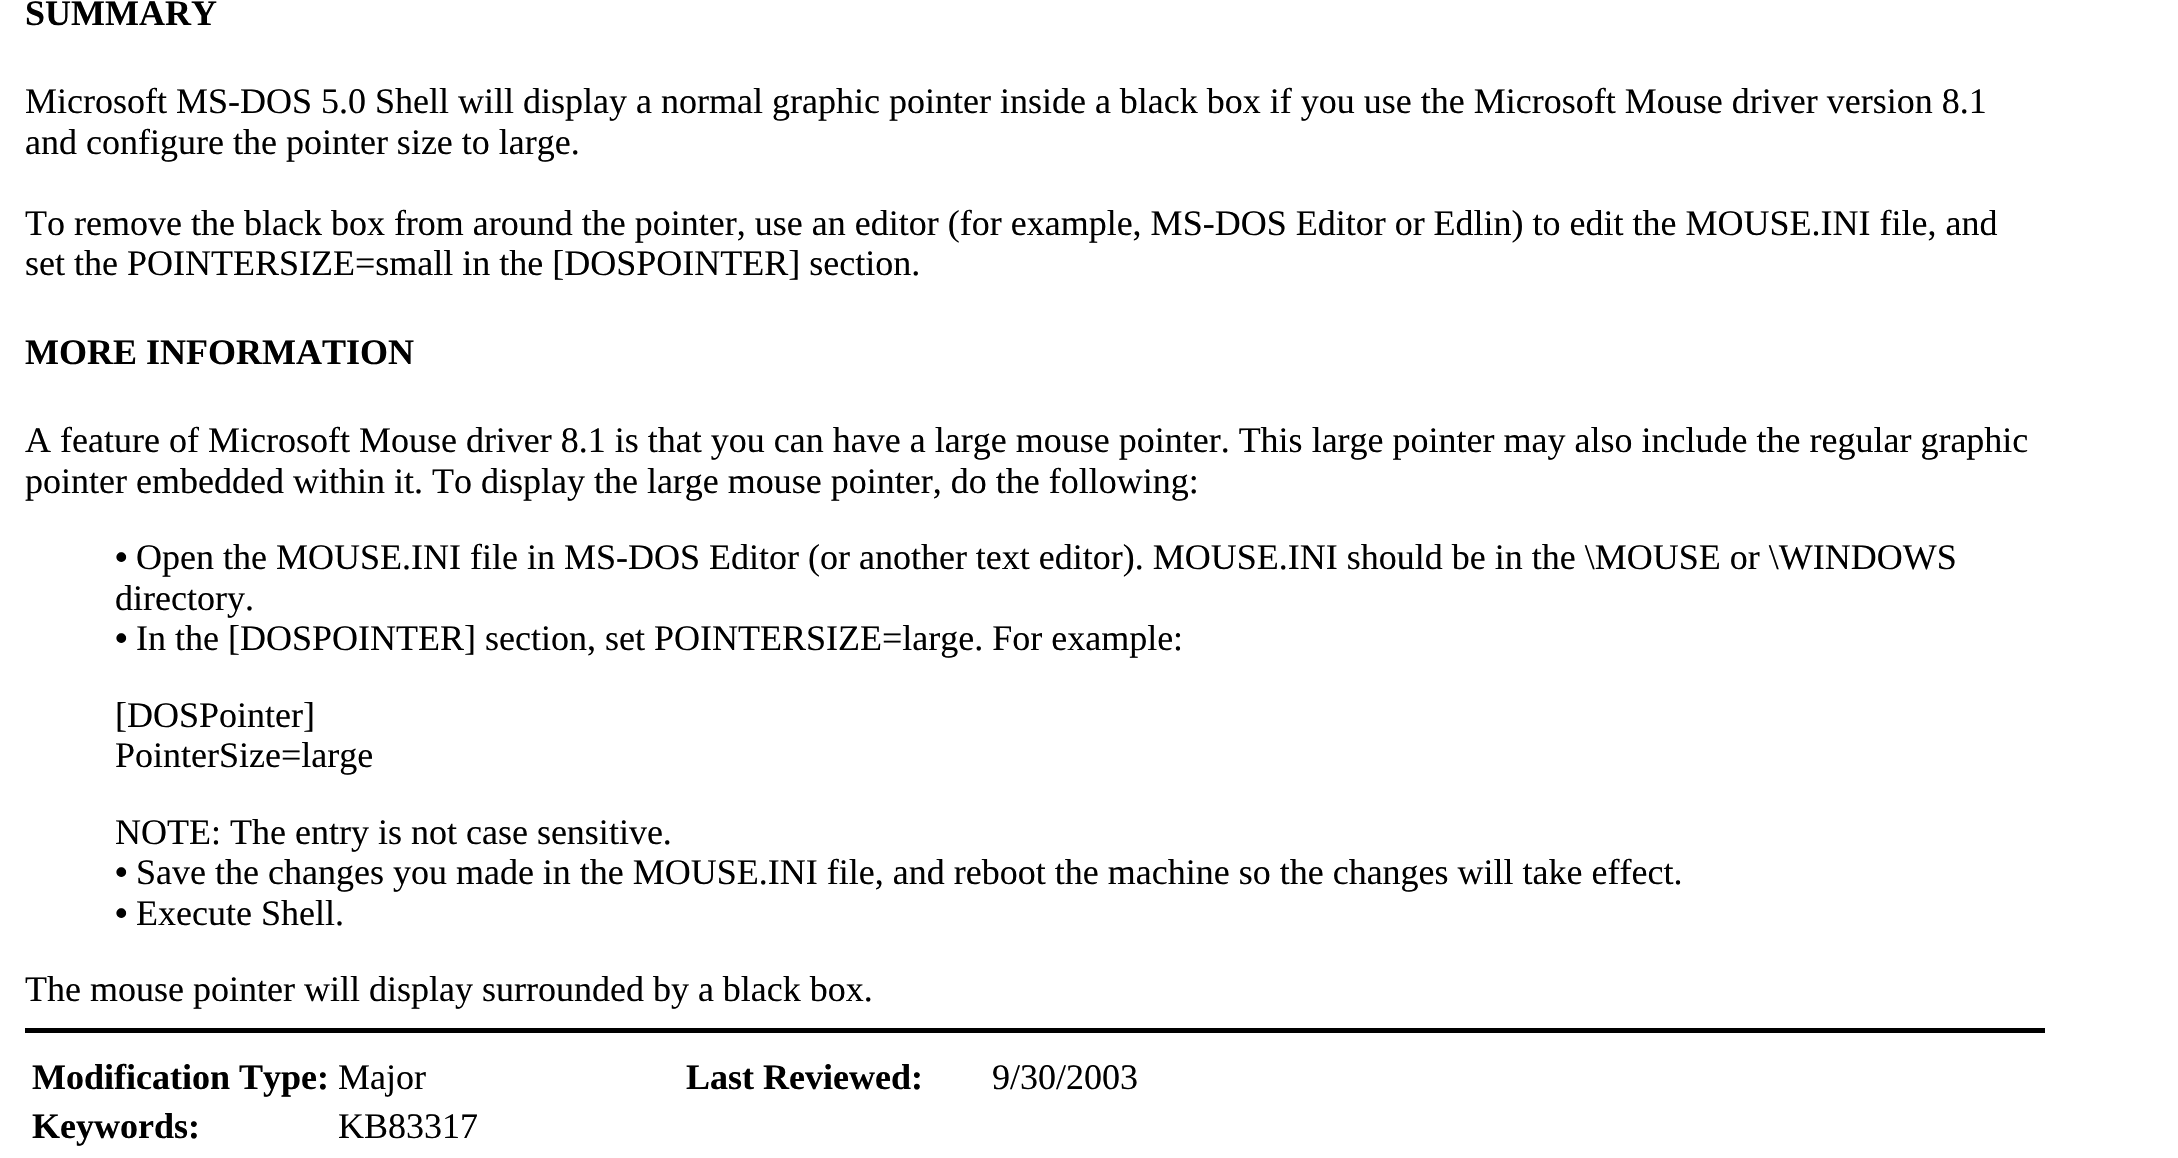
#include "include/core/SkBlurTypes.h"
#include "include/core/SkCanvas.h"
#include "include/core/SkData.h"
#include "include/core/SkFont.h"
#include "include/core/SkFontMgr.h"
#include "include/core/SkImage.h"
#include "include/core/SkMaskFilter.h"
#include "include/core/SkPaint.h"
#include "include/core/SkPathBuilder.h"
#include "include/core/SkTextBlob.h"
#include "include/effects/SkDashPathEffect.h"
#include "include/effects/SkGradientShader.h"
#include "include/utils/SkParsePath.h"

extern sk_sp<SkFontMgr> fontMgr;

void draw(SkCanvas* canvas) {
    SkPaint p;
    p.setAntiAlias(true);
    auto font = [&](const char* family, int weight, float size, bool italic = false) {
        SkFontStyle style(weight, SkFontStyle::kNormal_Width,
            italic ? SkFontStyle::kItalic_Slant : SkFontStyle::kUpright_Slant);
        SkFont result(fontMgr->matchFamilyStyle(family, style), size);
        result.setSubpixel(true);
        return result;
    };
    canvas->clear(0xFFFFFFFF);
    auto font1 = font("Liberation Serif", 700, 36);
    p.setColor(0xFF000000);
    canvas->drawString("SUMMARY", 25, 25, font1, p);
    auto font2 = font("Liberation Serif", 400, 36);
    {
        const struct { const char* s; float x, y; } items[] = {
            {"Microsoft MS-DOS 5.0 Shell will display a normal graphic pointer inside a black box if you use the Microsoft Mouse driver version 8.1", 25, 113},
            {"and configure the pointer size to large.", 25, 154},
            {"To remove the black box from around the pointer, use an editor (for example, MS-DOS Editor or Edlin) to edit the MOUSE.INI file, and", 25, 235},
            {"set the POINTERSIZE=small in the [DOSPOINTER] section.", 25, 275},
        };
        for (auto [s, x, y] : items) {
            canvas->drawString(s, x, y, font2, p);
        }
    }
    canvas->drawString("MORE INFORMATION", 25, 364, font1, p);
    canvas->drawString("A feature of Microsoft Mouse driver 8.1 is that you can have a large mouse pointer. This large pointer may also include the regular graphic", 25, 452, font2, p);
    canvas->drawString("pointer embedded within it. To display the large mouse pointer, do the following:", 25, 493, font2, p);
    canvas->drawString("•", 115, 569, font1, p);
    canvas->drawString("Open the MOUSE.INI file in MS-DOS Editor (or another text editor). MOUSE.INI should be in the \\MOUSE or \\WINDOWS", 136, 569, font2, p);
    canvas->drawString("directory.", 115, 610, font2, p);
    canvas->drawString("•", 115, 650, font1, p);
    {
        const struct { const char* s; float x, y; } items[] = {
            {"In the [DOSPOINTER] section, set POINTERSIZE=large. For example:", 136, 650},
            {"[DOSPointer]", 115, 727},
            {"PointerSize=large", 115, 767},
            {"NOTE: The entry is not case sensitive.", 115, 844},
        };
        for (auto [s, x, y] : items) {
            canvas->drawString(s, x, y, font2, p);
        }
    }
    canvas->drawString("•", 115, 884, font1, p);
    canvas->drawString("Save the changes you made in the MOUSE.INI file, and reboot the machine so the changes will take effect.", 136, 884, font2, p);
    canvas->drawString("•", 115, 925, font1, p);
    canvas->drawString("Execute Shell.", 136, 925, font2, p);
    canvas->drawString("The mouse pointer will display surrounded by a black box.", 25, 1001, font2, p);
    canvas->drawRect(SkRect::MakeLTRB(25, 1028, 2045, 1033), p);
    canvas->drawString("Modification Type:", 32, 1089, font1, p);
    canvas->drawString("Major", 338, 1089, font2, p);
    canvas->drawString("Last Reviewed:", 686, 1089, font1, p);
    canvas->drawString("9/30/2003", 992, 1089, font2, p);
    canvas->drawString("Keywords:", 32, 1138, font1, p);
    canvas->drawString("KB83317", 338, 1138, font2, p);
}
